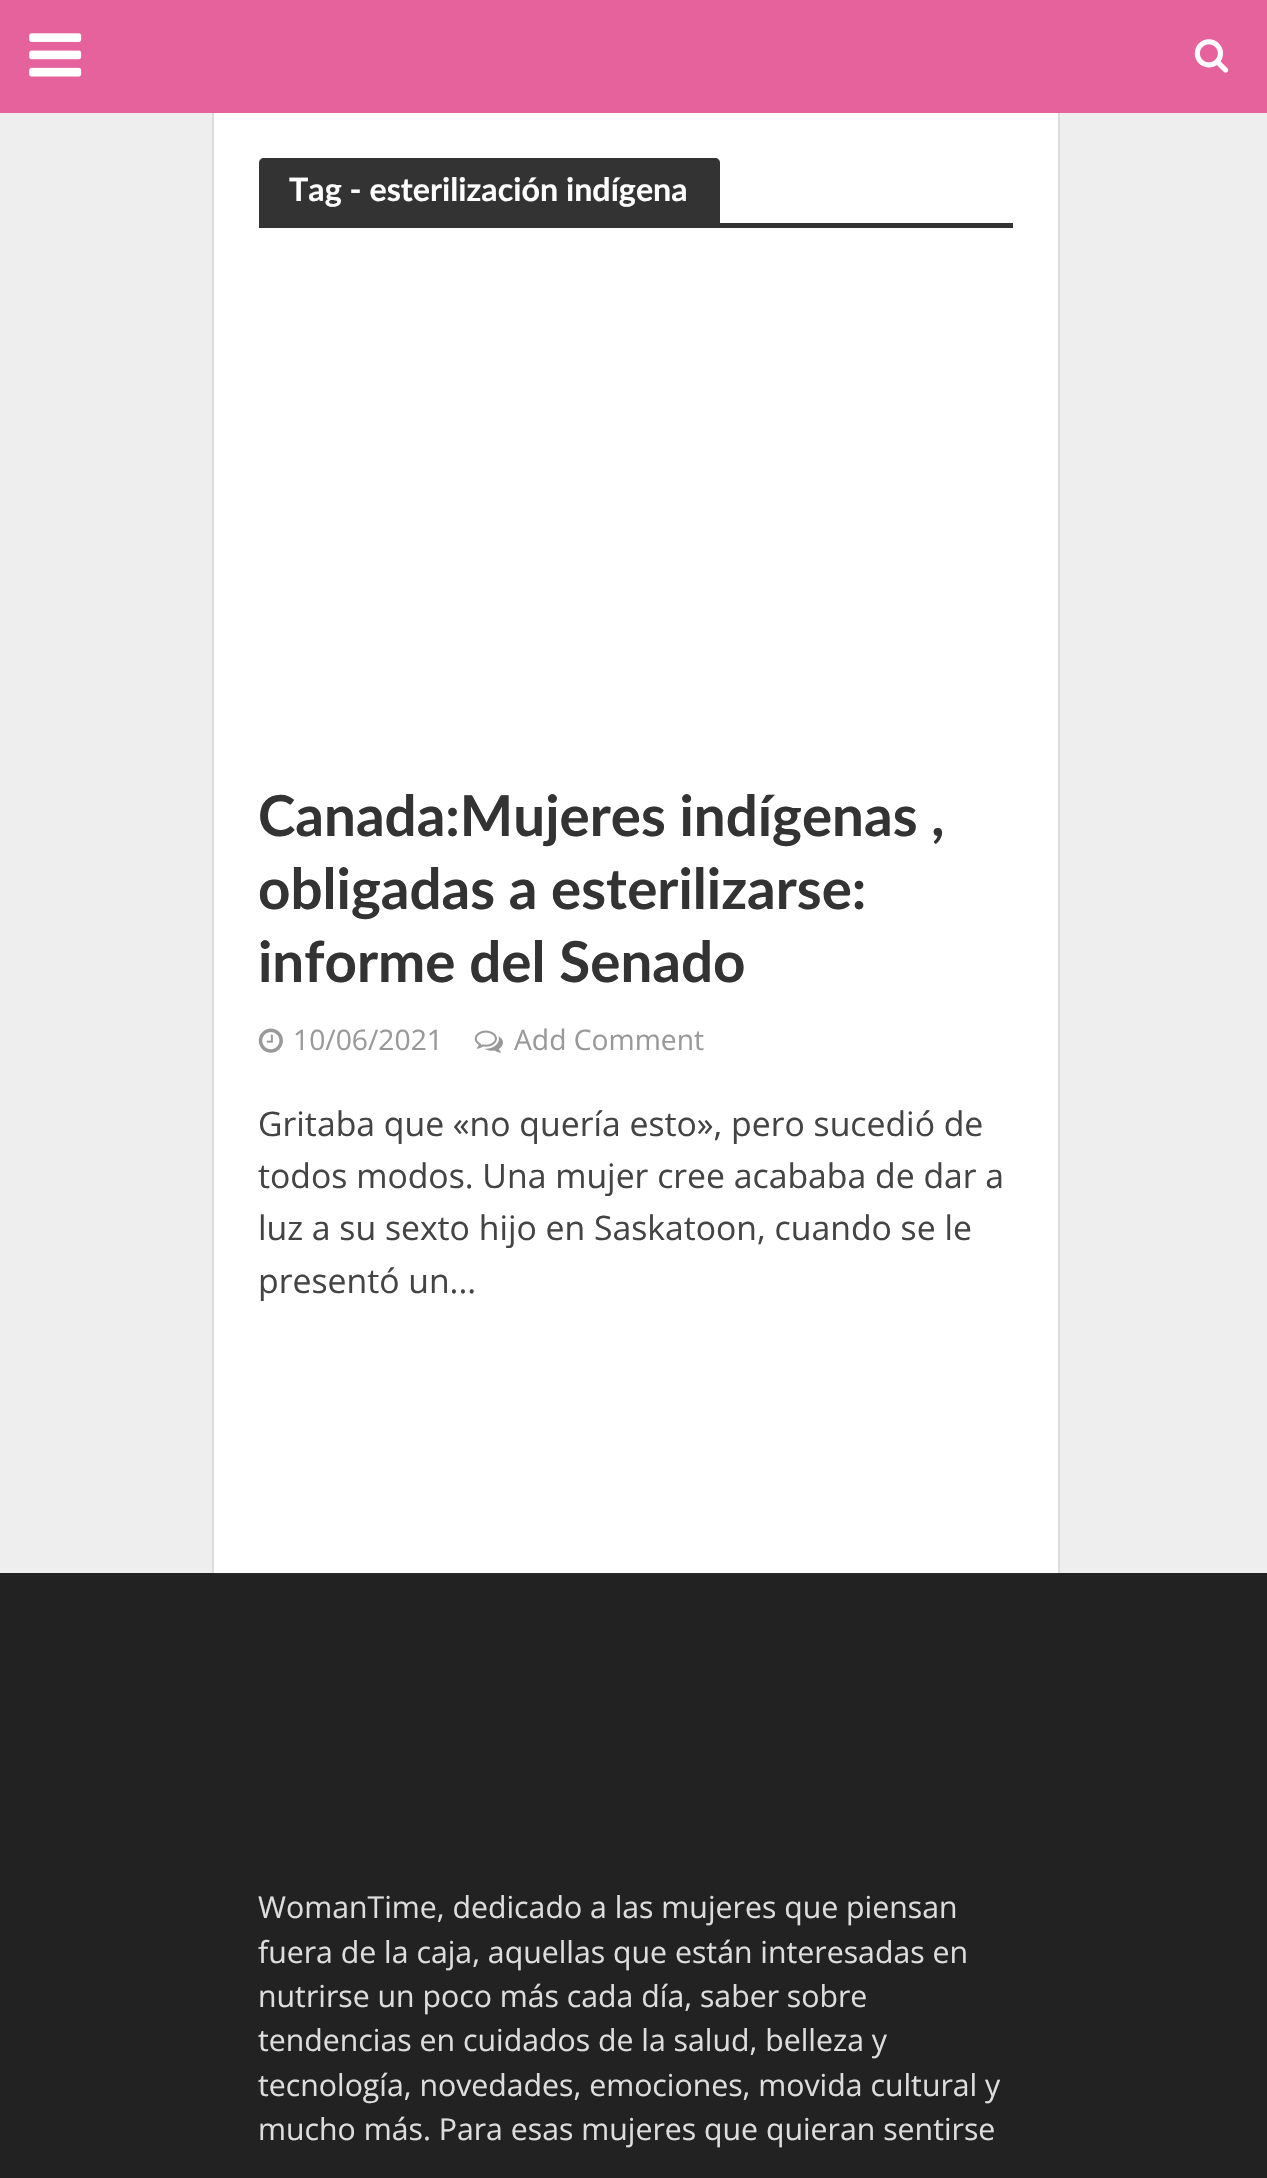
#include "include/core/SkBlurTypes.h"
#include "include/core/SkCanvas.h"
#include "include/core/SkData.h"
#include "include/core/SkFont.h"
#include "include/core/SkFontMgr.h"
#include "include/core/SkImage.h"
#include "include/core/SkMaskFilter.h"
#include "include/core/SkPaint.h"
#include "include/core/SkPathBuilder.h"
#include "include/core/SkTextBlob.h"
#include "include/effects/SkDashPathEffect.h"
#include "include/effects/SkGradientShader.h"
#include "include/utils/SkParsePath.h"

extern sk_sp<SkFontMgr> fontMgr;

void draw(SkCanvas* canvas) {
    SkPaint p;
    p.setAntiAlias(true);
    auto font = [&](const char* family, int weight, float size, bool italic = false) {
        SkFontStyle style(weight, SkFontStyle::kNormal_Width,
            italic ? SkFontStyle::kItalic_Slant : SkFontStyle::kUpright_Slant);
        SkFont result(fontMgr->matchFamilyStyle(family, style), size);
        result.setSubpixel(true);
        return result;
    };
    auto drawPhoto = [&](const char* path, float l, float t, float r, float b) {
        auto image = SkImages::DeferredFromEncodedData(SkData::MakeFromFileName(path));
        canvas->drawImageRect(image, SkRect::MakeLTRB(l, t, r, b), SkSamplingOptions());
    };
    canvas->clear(0xFFEEEEEE);
    p.setColor(0xFF222222);
    canvas->drawRect(SkRect::MakeLTRB(0, 1573, 1267, 2178), p);
    p.setStyle(SkPaint::kStroke_Style);
    p.setStrokeWidth(2);
    p.setColor(0x1A444444);
    canvas->drawRect(SkRect::MakeLTRB(213, 111, 1059, 1574), p);
    p.setStyle(SkPaint::kFill_Style);
    p.setColor(0xFFE6629C);
    canvas->drawRect(SkRect::MakeLTRB(0, 0, 1267, 113), p);
    drawPhoto("media/1.png", 29, 33, 82, 77);
    drawPhoto("media/2.png", 1194, 39, 1229, 73);
    p.setColor(0xFFFFFFFF);
    canvas->drawRect(SkRect::MakeLTRB(214, 113, 1058, 1573), p);
    p.setColor(0xFF333333);
    canvas->drawPath(SkPathBuilder().moveTo(264, 158).lineTo(715, 158).cubicTo(718, 158, 720, 160, 720, 163).lineTo(720, 223).lineTo(259, 223).lineTo(259, 163).cubicTo(259, 160, 261, 158, 264, 158).close().detach(), p);
    auto font1 = font("Lato", 700, 32.25f);
    p.setColor(0xFFFFFFFF);
    canvas->drawString("Tag - esterilización indígena", 289, 201, font1, p);
    p.setColor(0xFF333333);
    canvas->drawRect(SkRect::MakeLTRB(259, 223, 1013, 228), p);
    auto font2 = font("Lato", 700, 56.5f);
    {
        const struct { const char* s; float x, y; } items[] = {
            {"Canada:Mujeres indígenas ,", 258, 836},
            {"obligadas a esterilizarse:", 258, 909},
            {"informe del Senado", 258, 982},
        };
        for (auto [s, x, y] : items) {
            canvas->drawString(s, x, y, font2, p);
        }
    }
    drawPhoto("media/3.png", 258, 1028, 283, 1053);
    auto font3 = font("Open Sans", 400, 28.25f);
    p.setColor(0xFF999999);
    canvas->drawString("10/06/2021", 293, 1050, font3, p);
    drawPhoto("media/4.png", 474, 1030, 503, 1053);
    canvas->drawString("Add Comment", 514, 1050, font3, p);
    auto font4 = font("Open Sans", 400, 33.75f);
    p.setColor(0xFF444444);
    {
        const struct { const char* s; float x, y; } items[] = {
            {"Gritaba que «no quería esto», pero sucedió de", 258, 1136},
            {"todos modos. Una mujer cree acababa de dar a", 258, 1188},
            {"luz a su sexto hijo en Saskatoon, cuando se le", 258, 1240},
            {"presentó un...", 258, 1293},
        };
        for (auto [s, x, y] : items) {
            canvas->drawString(s, x, y, font4, p);
        }
    }
    auto font5 = font("Open Sans", 400, 30.25f);
    p.setColor(0xFFDDDDDD);
    {
        const struct { const char* s; float x, y; } items[] = {
            {"WomanTime, dedicado a las mujeres que piensan", 258, 1918},
            {"fuera de la caja, aquellas que están interesadas en", 258, 1963},
            {"nutrirse un poco más cada día, saber sobre", 258, 2007},
            {"tendencias en cuidados de la salud, belleza y", 258, 2051},
            {"tecnología, novedades, emociones, movida cultural y", 258, 2096},
            {"mucho más. Para esas mujeres que quieran sentirse", 258, 2140},
        };
        for (auto [s, x, y] : items) {
            canvas->drawString(s, x, y, font5, p);
        }
    }
}
